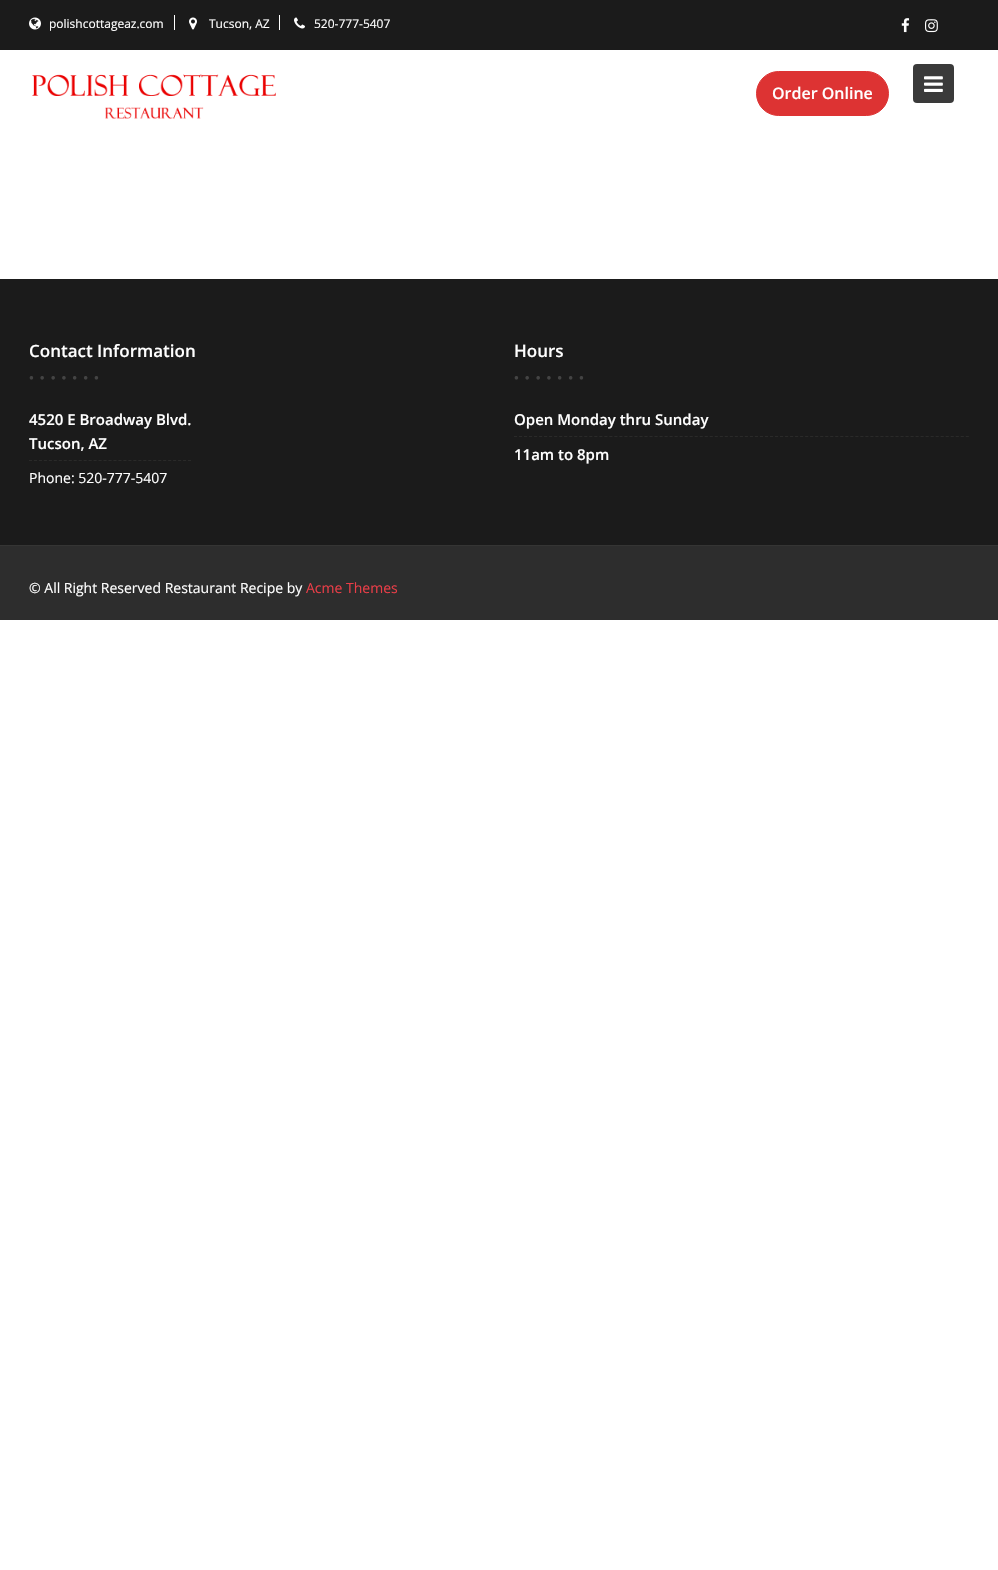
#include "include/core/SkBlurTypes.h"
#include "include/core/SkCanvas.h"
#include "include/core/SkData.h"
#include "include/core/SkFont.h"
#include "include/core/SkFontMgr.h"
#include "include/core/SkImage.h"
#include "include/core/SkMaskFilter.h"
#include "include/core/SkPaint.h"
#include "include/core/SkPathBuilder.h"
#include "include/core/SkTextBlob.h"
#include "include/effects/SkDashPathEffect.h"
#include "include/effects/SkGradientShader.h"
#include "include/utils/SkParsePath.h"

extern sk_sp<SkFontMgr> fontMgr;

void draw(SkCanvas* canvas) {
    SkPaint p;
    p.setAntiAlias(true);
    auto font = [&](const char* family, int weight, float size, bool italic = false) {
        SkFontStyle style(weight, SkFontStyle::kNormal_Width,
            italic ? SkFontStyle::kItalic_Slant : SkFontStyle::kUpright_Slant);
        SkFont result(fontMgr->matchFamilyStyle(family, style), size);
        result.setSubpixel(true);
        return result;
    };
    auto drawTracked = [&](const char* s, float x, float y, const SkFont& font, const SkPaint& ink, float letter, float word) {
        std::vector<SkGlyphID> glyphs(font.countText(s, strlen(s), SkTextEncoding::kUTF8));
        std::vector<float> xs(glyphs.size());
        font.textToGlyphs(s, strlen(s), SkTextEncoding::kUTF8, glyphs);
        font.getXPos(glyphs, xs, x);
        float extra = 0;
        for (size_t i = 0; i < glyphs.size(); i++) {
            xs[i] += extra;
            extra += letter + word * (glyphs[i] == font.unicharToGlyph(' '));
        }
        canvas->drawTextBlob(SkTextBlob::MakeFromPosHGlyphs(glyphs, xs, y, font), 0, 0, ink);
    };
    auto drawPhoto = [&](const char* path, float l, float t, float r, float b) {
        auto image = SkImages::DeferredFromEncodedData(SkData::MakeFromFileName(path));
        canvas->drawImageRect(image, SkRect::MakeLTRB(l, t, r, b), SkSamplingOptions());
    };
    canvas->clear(0xFFFFFFFF);
    p.setColor(0xFF1B1B1B);
    canvas->drawRect(SkRect::MakeLTRB(0, 0, 998, 50), p);
    p.setColor(0xFFFFFFFF);
    canvas->drawRect(SkRect::MakeLTRB(174, 15, 175, 30), p);
    drawPhoto("media/1.png", 29, 17, 41, 30);
    auto font1 = font("Open Sans", 400, 12);
    canvas->drawString("polishcottageaz.com", 49, 28, font1, p);
    canvas->drawRect(SkRect::MakeLTRB(279, 15, 280, 30), p);
    drawPhoto("media/2.png", 189, 17, 197, 30);
    canvas->drawString("Tucson, AZ", 209, 28, font1, p);
    drawPhoto("media/3.png", 294, 17, 305, 29);
    canvas->drawString("520-777-5407", 314, 28, font1, p);
    drawPhoto("media/4.png", 901, 18, 910, 33);
    drawPhoto("media/5.png", 925, 19, 938, 33);
    drawPhoto("media/6.png", 32, 74, 276, 119);
    p.setColor(0xFF3A3A3A);
    canvas->drawRoundRect(SkRect::MakeLTRB(913, 64, 954, 103), 4, 4, p);
    drawPhoto("media/7.png", 924, 76, 943, 92);
    p.setColor(0xFFDD3333);
    canvas->drawRoundRect(SkRect::MakeLTRB(756.5f, 71.5f, 888.5f, 115.5f), 22, 22, p);
    p.setStyle(SkPaint::kStroke_Style);
    p.setStrokeWidth(1);
    canvas->drawRoundRect(SkRect::MakeLTRB(756.5f, 71.5f, 888.5f, 115.5f), 22, 22, p);
    auto font2 = font("Open Sans", 600, 16);
    p.setStyle(SkPaint::kFill_Style);
    p.setColor(0xFFFFFFFF);
    canvas->drawString("Order Online", 772, 99, font2, p);
    p.setColor(0xFF1B1B1B);
    canvas->drawRect(SkRect::MakeLTRB(0, 279, 998, 545), p);
    auto font3 = font("Open Sans", 600, 17);
    p.setColor(0xFFFFFFFF);
    canvas->drawString("Contact Information", 29, 357, font3, p);
    auto font4 = font("Liberation Sans", 700, 8);
    p.setColor(0xFF444444);
    drawTracked("●●●●●●●", 29, 380, font4, p, 6, 0);
    p.setStyle(SkPaint::kStroke_Style);
    p.setColor(0xFF2A2A29);
    p.setPathEffect(SkDashPathEffect::Make({{3, 1.97f}}, 0));
    canvas->drawPath(SkPathBuilder().moveTo(29, 460.5f).lineTo(191, 460.5f).detach(), p);
    p.setPathEffect(nullptr);
    auto font5 = font("Open Sans", 600, 15);
    p.setStyle(SkPaint::kFill_Style);
    p.setColor(0xFFFFFFFF);
    canvas->drawString("4520 E Broadway Blvd.", 29, 425, font5, p);
    canvas->drawString("Tucson, AZ", 29, 449, font5, p);
    auto font6 = font("Open Sans", 400, 14);
    canvas->drawString("Phone: 520-777-5407", 29, 483, font6, p);
    canvas->drawString("Hours", 514, 357, font3, p);
    p.setColor(0xFF444444);
    drawTracked("●●●●●●●", 514, 380, font4, p, 6, 0);
    p.setStyle(SkPaint::kStroke_Style);
    p.setColor(0xFF2A2A29);
    p.setPathEffect(SkDashPathEffect::Make({{3, 2.02f}}, 0));
    canvas->drawPath(SkPathBuilder().moveTo(514, 436.5f).lineTo(969, 436.5f).detach(), p);
    p.setPathEffect(nullptr);
    p.setStyle(SkPaint::kFill_Style);
    p.setColor(0xFFFFFFFF);
    canvas->drawString("Open Monday thru Sunday", 514, 425, font5, p);
    canvas->drawString("11am to 8pm", 514, 460, font5, p);
    p.setColor(0xFF2D2D2D);
    canvas->drawRect(SkRect::MakeLTRB(0, 546, 998, 620), p);
    p.setColor(0xFF353534);
    canvas->drawRect(SkRect::MakeLTRB(0, 545, 998, 546), p);
    p.setColor(0xFFFFFFFF);
    canvas->drawString("© All Right Reserved Restaurant Recipe by", 29, 593, font6, p);
    p.setColor(0xFFE83D47);
    canvas->drawString("Acme Themes", 306, 593, font6, p);
}
